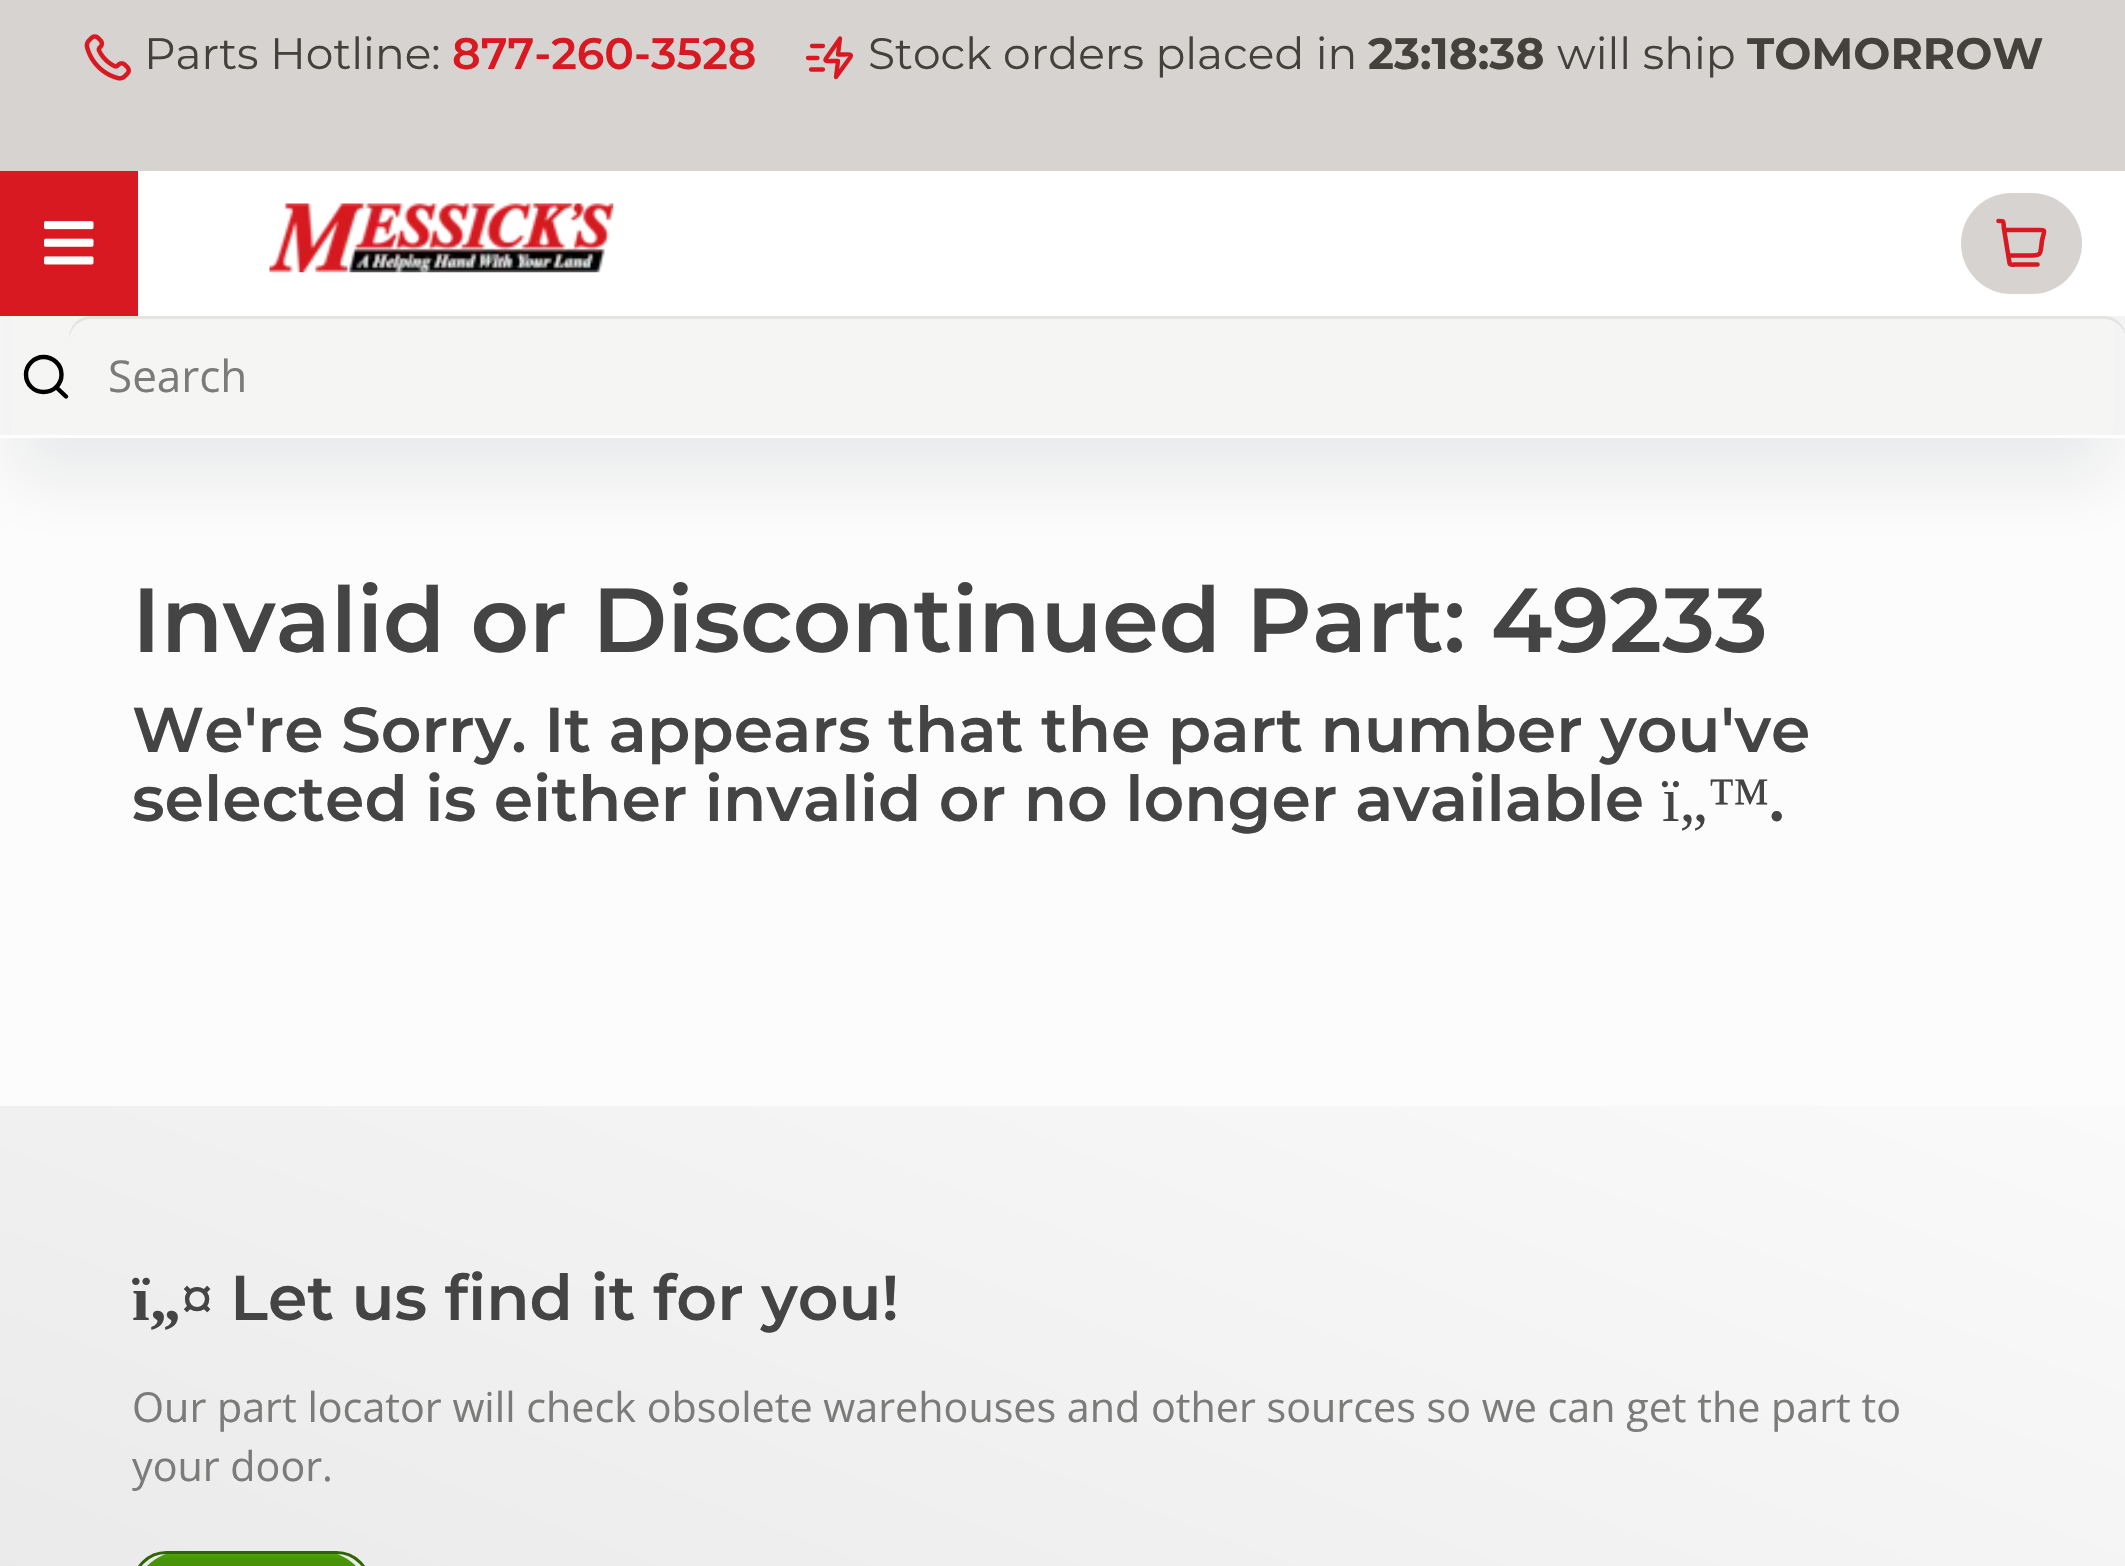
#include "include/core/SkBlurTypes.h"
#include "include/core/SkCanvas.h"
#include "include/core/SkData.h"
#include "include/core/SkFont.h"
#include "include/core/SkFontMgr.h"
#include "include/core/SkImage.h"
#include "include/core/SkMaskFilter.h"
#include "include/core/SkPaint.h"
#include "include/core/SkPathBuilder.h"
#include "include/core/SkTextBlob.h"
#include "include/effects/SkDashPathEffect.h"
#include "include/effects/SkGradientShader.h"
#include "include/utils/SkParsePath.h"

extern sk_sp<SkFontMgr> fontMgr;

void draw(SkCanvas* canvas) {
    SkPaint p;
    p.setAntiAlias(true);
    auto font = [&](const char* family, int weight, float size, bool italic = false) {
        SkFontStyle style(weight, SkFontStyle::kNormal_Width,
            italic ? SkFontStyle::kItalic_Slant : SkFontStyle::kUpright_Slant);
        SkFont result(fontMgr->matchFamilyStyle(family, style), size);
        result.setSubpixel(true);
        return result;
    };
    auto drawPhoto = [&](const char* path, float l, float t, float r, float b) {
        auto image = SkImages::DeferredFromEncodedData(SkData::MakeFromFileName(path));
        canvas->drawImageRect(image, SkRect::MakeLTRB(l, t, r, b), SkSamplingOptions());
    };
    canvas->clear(0xFFFCFCFC);
    p.setColor(0xFFD7D3D0);
    canvas->drawRect(SkRect::MakeLTRB(0, 0, 2125, 171), p);
    drawPhoto("media/1.png", 84, 34, 131, 81);
    auto font1 = font("Montserrat", 400, 44);
    p.setColor(0xFF44403C);
    canvas->drawString("Parts Hotline:", 144, 69, font1, p);
    auto font2 = font("Montserrat", 600, 44);
    p.setColor(0xFFD81921);
    canvas->drawString("877-260-3528", 452, 69, font2, p);
    p.setStyle(SkPaint::kStroke_Style);
    p.setStrokeWidth(4.3f);
    p.setStrokeCap(SkPaint::kRound_Cap);
    p.setStrokeJoin(SkPaint::kRound_Join);
    canvas->drawPath(SkPathBuilder().moveTo(823, 69.5f).lineTo(811, 69.5f).moveTo(817.5f, 58).lineTo(808, 58).moveTo(823, 46).lineTo(812, 46).moveTo(840, 38.5f).lineTo(826, 58.5f).cubicTo(823.5f, 62, 829, 61, 831, 61).lineTo(838, 61).lineTo(836, 77).lineTo(850.5f, 57).cubicTo(852.5f, 53.5f, 847, 54.5f, 845, 54.5f).lineTo(838, 54.5f).close().detach(), p);
    p.setStyle(SkPaint::kFill_Style);
    p.setColor(0xFF44403C);
    canvas->drawString("Stock orders placed in", 868, 69, font1, p);
    auto font3 = font("Montserrat", 700, 44);
    canvas->drawString("23:18:38", 1368, 69, font3, p);
    canvas->drawString("will ship", 1557, 69, font1, p);
    canvas->drawString("TOMORROW", 1747, 69, font3, p);
    p.setColor(0x14101828);
    p.setMaskFilter(SkMaskFilter::MakeBlur(kNormal_SkBlurStyle, 33));
    canvas->drawRect(SkRect::MakeLTRB(11, 237, 2115, 481), p);
    p.setMaskFilter(nullptr);
    p.setColor(0xFFFFFFFF);
    canvas->drawRect(SkRect::MakeLTRB(138, 171, 2125, 316), p);
    p.setColor(0xFFD81921);
    canvas->drawRect(SkRect::MakeLTRB(0, 171, 138, 316), p);
    drawPhoto("media/2.png", 44, 221, 94, 265);
    drawPhoto("media/3.png", 269, 203, 614, 273);
    p.setColor(0xFFD7D3D0);
    canvas->drawRoundRect(SkRect::MakeLTRB(1961, 193, 2082, 294), 50.5f, 50.5f, p);
    p.setStyle(SkPaint::kStroke_Style);
    p.setStrokeWidth(4.6f);
    p.setColor(0xFFD81921);
    canvas->drawPath(SkPathBuilder().moveTo(2008.5f, 255.5f).lineTo(2029.5f, 255.5f).cubicTo(2042.5f, 255.5f, 2040, 254, 2042, 240.5f).cubicTo(2044.5f, 229, 2047, 230, 2036, 230).lineTo(2005, 230).moveTo(1998.5f, 221).cubicTo(2005, 221, 2003, 221, 2004, 229).lineTo(2009.5f, 263).cubicTo(2010, 265.5f, 2013.5f, 264.5f, 2015.5f, 264.5f).lineTo(2037.5f, 264.5f).detach(), p);
    p.setStyle(SkPaint::kFill_Style);
    p.setColor(0xFFF5F5F4);
    canvas->drawRect(SkRect::MakeLTRB(12, 316, 2114, 435), p);
    p.setColor(0xFFFFFFFF);
    canvas->drawRect(SkRect::MakeLTRB(0, 435, 2125, 438), p);
    p.setStyle(SkPaint::kStroke_Style);
    p.setStrokeWidth(4.4f);
    p.setColor(0xFF000000);
    canvas->drawPath(SkPathBuilder().moveTo(66, 396.5f).lineTo(56, 387).moveTo(61.5f, 374.5f).cubicTo(61.5f, 384.5f, 53.5f, 392, 43.5f, 392).cubicTo(34, 392, 26, 384.5f, 26, 374.5f).cubicTo(26, 365, 34, 357, 43.5f, 357).cubicTo(53.5f, 357, 61.5f, 365, 61.5f, 374.5f).close().detach(), p);
    p.setStyle(SkPaint::kFill_Style);
    p.setColor(0xFFE3E3E2);
    canvas->drawPath(SkPathBuilder().moveTo(91, 319).lineTo(2104, 319).cubicTo(2116, 319, 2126, 329, 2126, 341).lineTo(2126, 338).cubicTo(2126, 326, 2116, 316, 2104, 316).lineTo(91, 316).cubicTo(79, 316, 69, 326, 69, 338).lineTo(69, 341).cubicTo(69, 329, 79, 319, 91, 319).close().detach(), p);
    auto font4 = font("Open Sans", 400, 44);
    p.setColor(0xFF7B7B7A);
    canvas->drawString("Search", 108, 392, font4, p);
    auto font5 = font("Montserrat", 600, 90.75f);
    p.setColor(0xFF444444);
    canvas->drawString("Invalid or Discontinued Part: 49233", 132, 652, font5, p);
    auto font6 = font("Montserrat", 600, 63.25f);
    canvas->drawString("We're Sorry. It appears that the part number you've", 132, 752, font6, p);
    canvas->drawString("selected is either invalid or no longer available", 132, 821, font6, p);
    auto font7 = font("Liberation Serif", 400, 63.25f);
    canvas->drawString("ï„™", 1662, 821, font7, p);
    canvas->drawString(".", 1769, 821, font6, p);
    {
        const SkColor colors[] = {0xFFE6E6E6, 0xFFFAFAFA};
        const float stops[] = {0, 1};
        const SkPoint ends[] = {{786, 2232}, {1340, 801}};
        p.setShader(SkGradientShader::MakeLinear(ends, colors, stops, 2, SkTileMode::kClamp));
        p.setAlpha(255);
    }
    canvas->drawRect(SkRect::MakeLTRB(0, 1106, 2125, 1566), p);
    auto font8 = font("Liberation Serif", 700, 63.25f);
    p.setShader(nullptr);
    p.setColor(0xFF444444);
    canvas->drawString("ï„¤", 132, 1320, font8, p);
    canvas->drawString("Let us find it for you!", 230, 1320, font6, p);
    auto font9 = font("Open Sans", 400, 41.25f);
    p.setColor(0xFF7B7B7A);
    canvas->drawString("Our part locator will check obsolete warehouses and other sources so we can get the part to", 132, 1422, font9, p);
    canvas->drawString("your door.", 132, 1481, font9, p);
    canvas->save();
    canvas->clipPath(SkPathBuilder().moveTo(183, 1551).lineTo(320, 1551).cubicTo(348, 1551, 371, 1574, 371, 1602).cubicTo(371, 1630, 348, 1653, 320, 1653).lineTo(183, 1653).cubicTo(155, 1653, 132, 1630, 132, 1602).cubicTo(132, 1574, 155, 1551, 183, 1551).close().detach(), true);
    {
        const SkColor colors[] = {0xFF4DA309, 0xFF469408, 0xFF3F8507};
        const float stops[] = {0, 0.06f, 1};
        const SkPoint ends[] = {{252, 1554}, {252, 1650}};
        p.setShader(SkGradientShader::MakeLinear(ends, colors, stops, 3, SkTileMode::kClamp));
        p.setAlpha(255);
    }
    canvas->drawRect(SkRect::MakeLTRB(147, 1554, 356, 1566), p);
    canvas->restore();
    p.setStyle(SkPaint::kStroke_Style);
    p.setStrokeWidth(3);
    p.setStrokeCap(SkPaint::kButt_Cap);
    p.setStrokeJoin(SkPaint::kMiter_Join);
    p.setShader(nullptr);
    p.setColor(0xFF2F6405);
    canvas->drawRoundRect(SkRect::MakeLTRB(133.5f, 1552.5f, 369.5f, 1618.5f), 49.5f, 49.5f, p);
}
